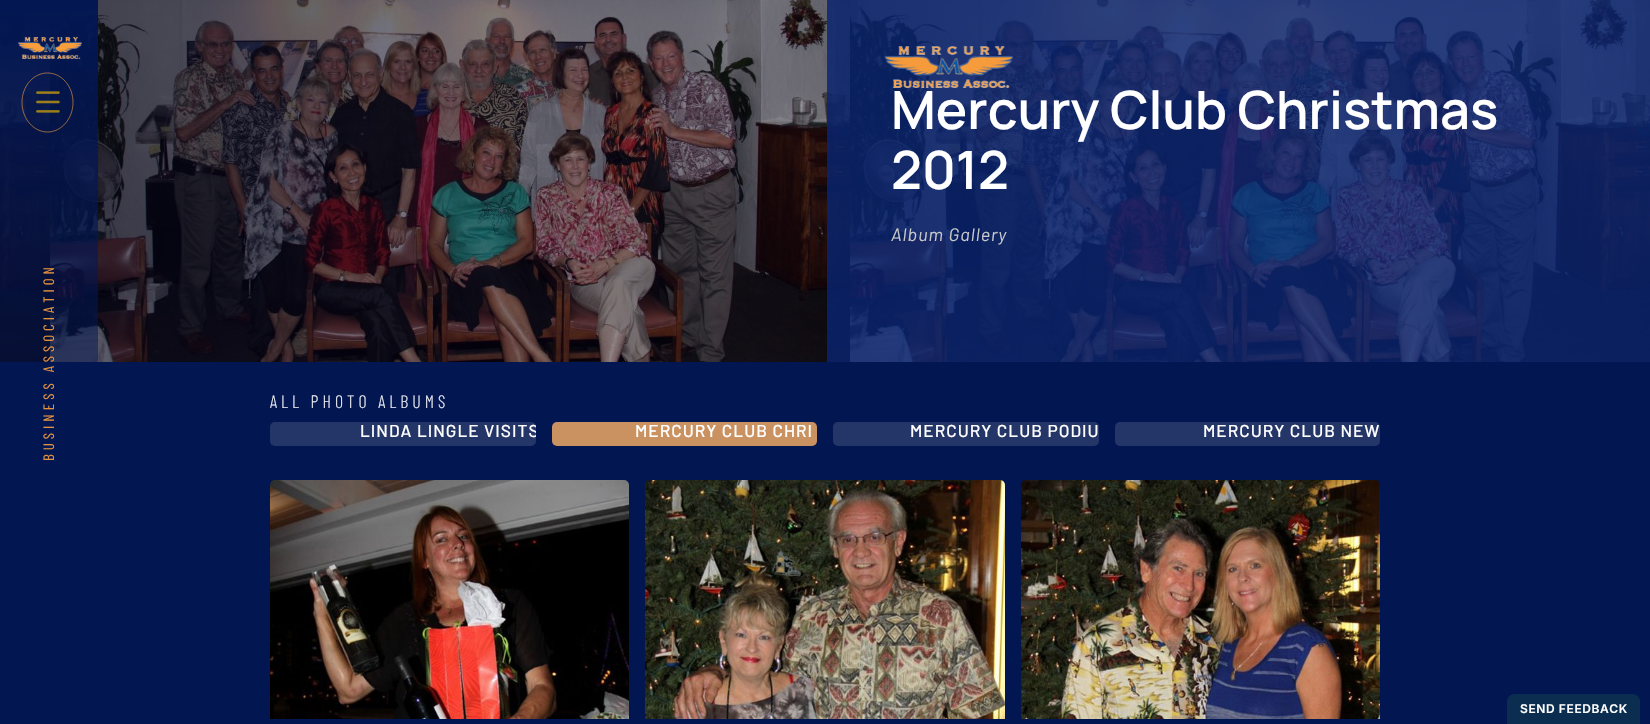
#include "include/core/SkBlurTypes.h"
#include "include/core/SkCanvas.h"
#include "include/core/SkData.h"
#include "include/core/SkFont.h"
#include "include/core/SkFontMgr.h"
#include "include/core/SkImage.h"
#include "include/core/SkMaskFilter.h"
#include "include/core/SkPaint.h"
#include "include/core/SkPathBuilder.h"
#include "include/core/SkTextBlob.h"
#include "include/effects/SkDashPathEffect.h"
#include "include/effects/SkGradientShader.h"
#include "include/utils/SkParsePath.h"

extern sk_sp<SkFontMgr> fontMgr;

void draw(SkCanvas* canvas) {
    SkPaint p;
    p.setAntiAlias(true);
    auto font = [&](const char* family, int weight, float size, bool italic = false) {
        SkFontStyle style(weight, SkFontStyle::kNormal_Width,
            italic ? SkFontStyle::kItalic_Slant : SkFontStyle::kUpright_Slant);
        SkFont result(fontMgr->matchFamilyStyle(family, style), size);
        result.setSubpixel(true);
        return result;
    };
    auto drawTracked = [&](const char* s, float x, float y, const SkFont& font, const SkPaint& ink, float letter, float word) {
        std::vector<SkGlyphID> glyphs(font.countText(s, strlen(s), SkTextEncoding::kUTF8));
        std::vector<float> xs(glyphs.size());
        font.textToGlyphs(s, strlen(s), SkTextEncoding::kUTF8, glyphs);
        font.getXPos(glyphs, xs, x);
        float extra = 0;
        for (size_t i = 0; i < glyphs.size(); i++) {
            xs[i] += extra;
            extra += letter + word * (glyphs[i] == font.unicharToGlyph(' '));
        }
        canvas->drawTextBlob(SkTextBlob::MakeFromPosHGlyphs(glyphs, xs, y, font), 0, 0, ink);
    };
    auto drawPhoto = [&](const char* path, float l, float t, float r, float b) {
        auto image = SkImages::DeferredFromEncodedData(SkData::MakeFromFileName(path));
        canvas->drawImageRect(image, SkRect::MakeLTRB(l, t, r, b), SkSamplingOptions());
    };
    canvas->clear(0xFF021652);
    drawPhoto("media/1.png", 0, 0, 1650, 362);
    p.setColor(0xD408236F);
    canvas->drawRect(SkRect::MakeLTRB(827, 0, 1650, 362), p);
    drawPhoto("media/2.png", 884, 46, 1013, 88);
    auto font1 = font("Manrope", 600, 52.75f);
    p.setColor(0xFFFFFFFF);
    canvas->drawString("Mercury Club Christmas", 891, 129, font1, p);
    canvas->drawString("2012", 891, 189, font1, p);
    auto font2 = font("Barlow", 400, 18, true);
    p.setColor(0xFFC9C9CA);
    drawTracked("Album Gallery", 891, 241, font2, p, 1, 0);
    {
        const SkColor colors[] = {0xFF021652, 0x00021652};
        const float stops[] = {0, 1};
        const SkPoint ends[] = {{48, 0}, {48, 724}};
        p.setShader(SkGradientShader::MakeLinear(ends, colors, stops, 2, SkTileMode::kClamp));
        p.setAlpha(255);
    }
    canvas->drawRect(SkRect::MakeLTRB(0, 0, 98, 362), p);
    drawPhoto("media/3.png", 18, 37, 82, 59);
    p.setStyle(SkPaint::kStroke_Style);
    p.setStrokeWidth(0.9f);
    p.setShader(nullptr);
    p.setColor(0xA6FB9F3C);
    canvas->drawPath(SkPathBuilder().moveTo(47.5f, 73).cubicTo(61.5f, 73, 73, 86, 73, 102.5f).cubicTo(73, 118.5f, 61.5f, 132, 47.5f, 132).cubicTo(33.5f, 132, 22, 118.5f, 22, 102.5f).cubicTo(22, 86, 33.5f, 73, 47.5f, 73).close().detach(), p);
    drawPhoto("media/4.png", 36, 91, 60, 113);
    auto font3 = font("Barlow Condensed", 400, 15);
    p.setStyle(SkPaint::kFill_Style);
    p.setColor(0xFFE5923D);
    canvas->save();
    canvas->rotate(-90, 54, 461);
    drawTracked("BUSINESS ASSOCIATION", 54, 461, font3, p, 4, 0);
    canvas->restore();
    auto font4 = font("Barlow Condensed", 300, 18);
    p.setColor(0xFFE8EAEF);
    drawTracked("ALL PHOTO ALBUMS", 270, 408, font4, p, 4, 0);
    p.setColor(0xFF243567);
    canvas->drawRoundRect(SkRect::MakeLTRB(270, 422, 536, 446), 5, 5, p);
    canvas->save();
    canvas->clipPath(SkPathBuilder().moveTo(275, 422).lineTo(531, 422).cubicTo(534, 422, 536, 424, 536, 427).lineTo(536, 441).cubicTo(536, 444, 534, 446, 531, 446).lineTo(275, 446).cubicTo(272, 446, 270, 444, 270, 441).lineTo(270, 427).cubicTo(270, 424, 272, 422, 275, 422).close().detach(), true);
    auto font5 = font("Barlow", 500, 17.25f);
    p.setColor(0xFFFFFFFF);
    drawTracked("LINDA LINGLE VISITS", 360, 437, font5, p, 1, 0);
    canvas->restore();
    p.setColor(0xFFC99260);
    canvas->drawRoundRect(SkRect::MakeLTRB(552, 422, 817, 446), 5, 5, p);
    p.setColor(0xFFFFFFFF);
    drawTracked("MERCURY CLUB CHRI", 635, 437, font5, p, 1, 0);
    p.setColor(0xFF243567);
    canvas->drawRoundRect(SkRect::MakeLTRB(833, 422, 1099, 446), 5, 5, p);
    p.setColor(0xFFFFFFFF);
    drawTracked("MERCURY CLUB PODIU", 910, 437, font5, p, 1, 0);
    p.setColor(0xFF243567);
    canvas->drawRoundRect(SkRect::MakeLTRB(1115, 422, 1380, 446), 5, 5, p);
    p.setColor(0xFFFFFFFF);
    drawTracked("MERCURY CLUB NEW", 1203, 437, font5, p, 1, 0);
    drawPhoto("media/5.png", 270, 480, 629, 719);
    drawPhoto("media/6.png", 645, 480, 1005, 719);
    drawPhoto("media/7.png", 1021, 480, 1380, 719);
    p.setColor(0xFF0A2D50);
    canvas->drawPath(SkPathBuilder().moveTo(1515, 694).lineTo(1632, 694).cubicTo(1636.5f, 694, 1640, 697.5f, 1640, 702).lineTo(1640, 724).lineTo(1507, 724).lineTo(1507, 702).cubicTo(1507, 697.5f, 1510.5f, 694, 1515, 694).close().detach(), p);
    auto font6 = font("Inter", 600, 12);
    p.setColor(0xFFFFFFFF);
    drawTracked("SEND FEEDBACK", 1520, 713, font6, p, 0.6f, 0);
}
